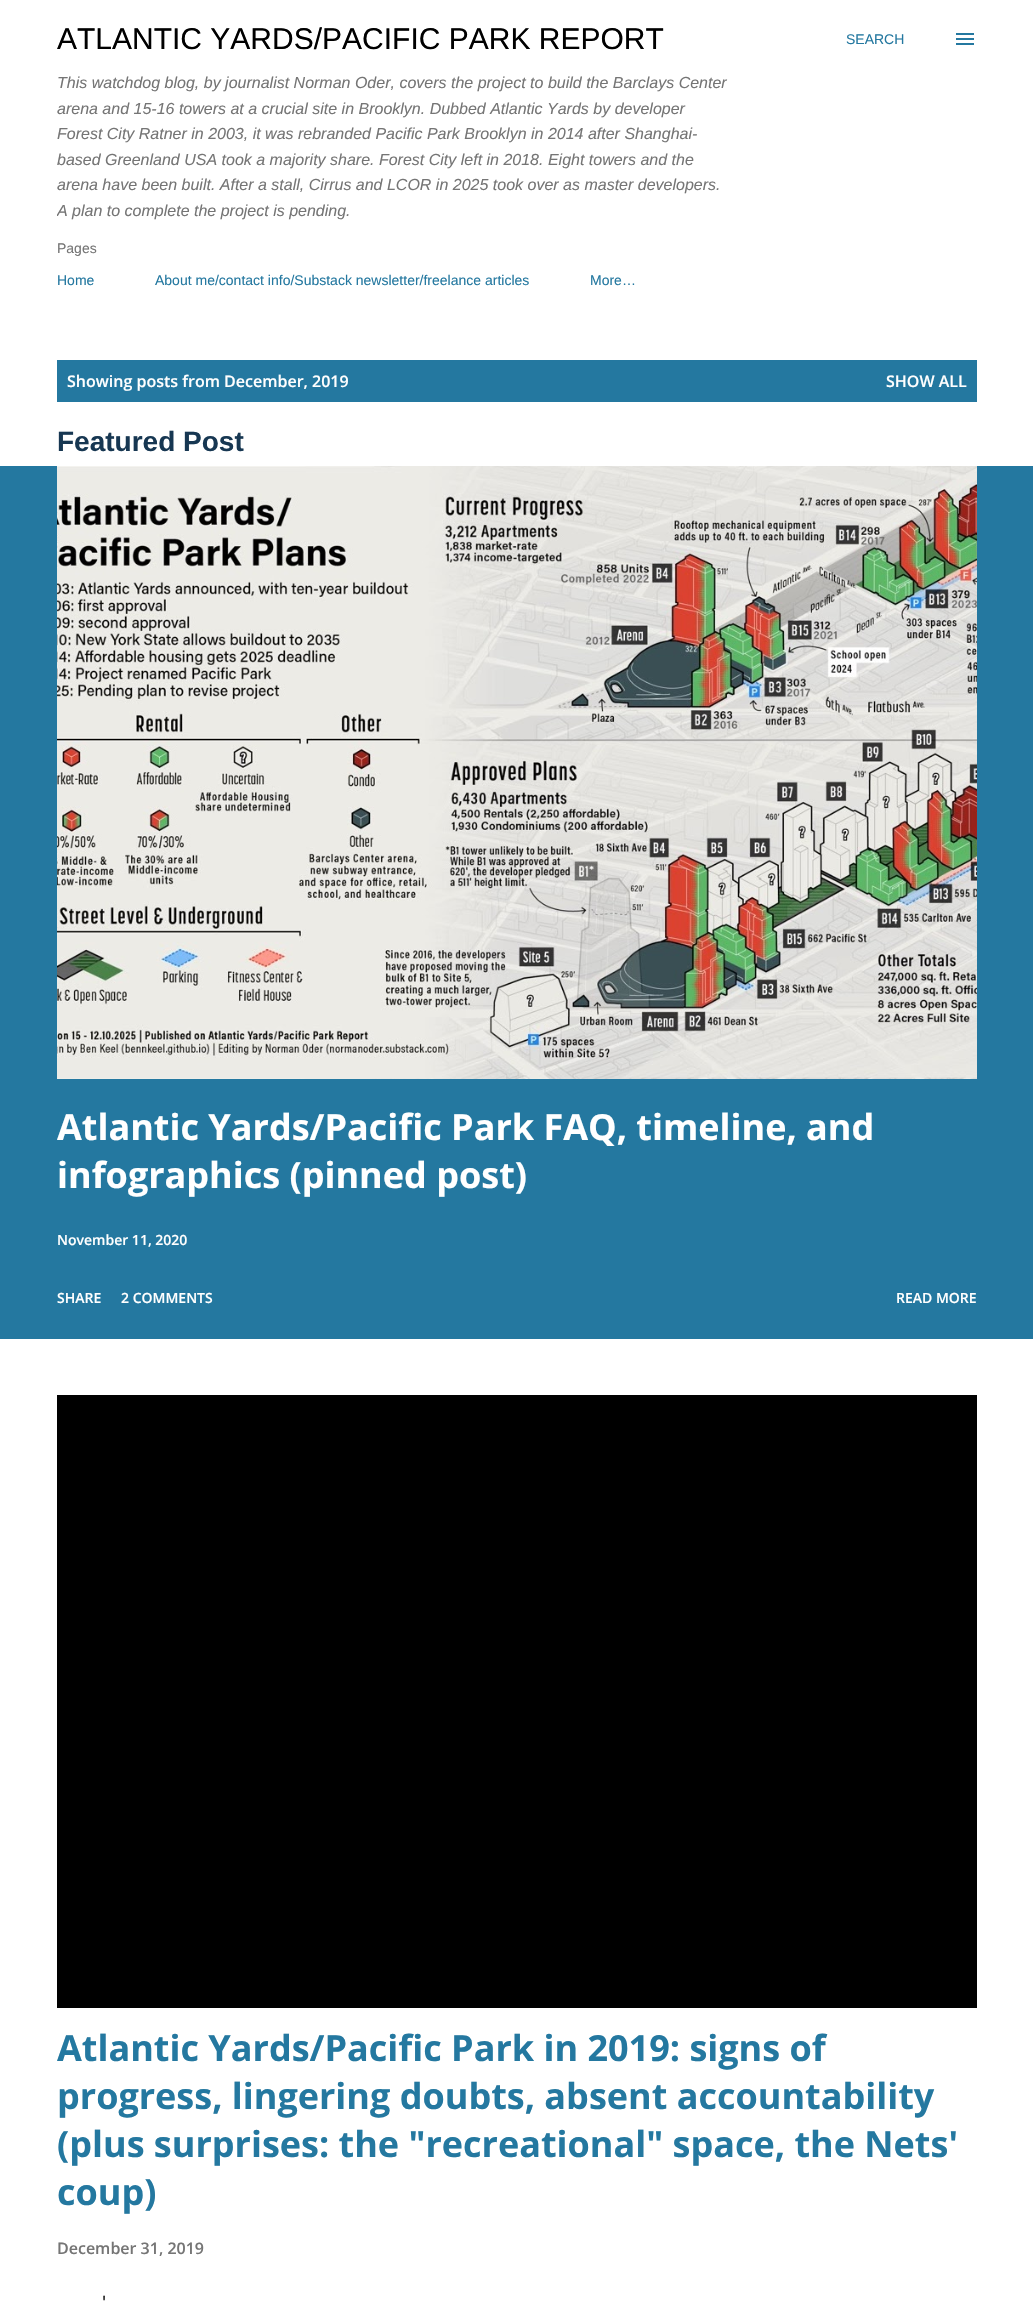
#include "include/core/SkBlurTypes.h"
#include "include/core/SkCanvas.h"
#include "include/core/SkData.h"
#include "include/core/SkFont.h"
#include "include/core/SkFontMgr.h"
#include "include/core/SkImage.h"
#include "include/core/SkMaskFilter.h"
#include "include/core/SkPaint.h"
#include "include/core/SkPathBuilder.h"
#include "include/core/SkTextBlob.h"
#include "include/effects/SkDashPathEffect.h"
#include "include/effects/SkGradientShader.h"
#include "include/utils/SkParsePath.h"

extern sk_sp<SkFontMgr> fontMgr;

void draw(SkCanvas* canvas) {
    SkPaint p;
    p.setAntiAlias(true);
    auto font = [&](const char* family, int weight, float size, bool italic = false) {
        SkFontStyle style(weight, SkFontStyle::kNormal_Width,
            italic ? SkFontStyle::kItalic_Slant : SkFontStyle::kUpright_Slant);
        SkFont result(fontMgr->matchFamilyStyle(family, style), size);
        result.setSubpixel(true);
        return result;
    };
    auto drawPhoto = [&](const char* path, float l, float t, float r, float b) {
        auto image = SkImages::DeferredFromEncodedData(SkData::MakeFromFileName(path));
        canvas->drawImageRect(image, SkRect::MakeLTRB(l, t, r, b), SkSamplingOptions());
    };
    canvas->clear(0xFFFFFFFF);
    auto font1 = font("Liberation Sans", 400, 30);
    p.setColor(0xFF000000);
    canvas->drawString("ATLANTIC YARDS/PACIFIC PARK REPORT", 57, 49, font1, p);
    auto font2 = font("Liberation Sans", 400, 16, true);
    p.setColor(0xFF757575);
    {
        const struct { const char* s; float x, y; } items[] = {
            {"This watchdog blog, by journalist Norman Oder, covers the project to build the Barclays Center", 57, 88},
            {"arena and 15-16 towers at a crucial site in Brooklyn. Dubbed Atlantic Yards by developer", 57, 114},
            {"Forest City Ratner in 2003, it was rebranded Pacific Park Brooklyn in 2014 after Shanghai-", 57, 139},
            {"based Greenland USA took a majority share. Forest City left in 2018. Eight towers and the", 57, 165},
            {"arena have been built. After a stall, Cirrus and LCOR in 2025 took over as master developers.", 57, 190},
        };
        for (auto [s, x, y] : items) {
            canvas->drawString(s, x, y, font2, p);
        }
    }
    canvas->save();
    canvas->clipRect(SkRect::MakeLTRB(57, 24, 905, 240));
    canvas->drawString("A plan to complete the project is pending.", 57, 216, font2, p);
    canvas->restore();
    auto font3 = font("Liberation Sans", 400, 14);
    p.setColor(0xFF2478A0);
    canvas->drawString("SEARCH", 846, 44, font3, p);
    drawPhoto("media/1.png", 956, 33, 974, 45);
    p.setColor(0xFF757575);
    canvas->drawString("Pages", 57, 253, font3, p);
    p.setColor(0xFF2478A0);
    {
        const struct { const char* s; float x, y; } items[] = {
            {"Home", 57, 285},
            {"About me/contact info/Substack newsletter/freelance articles", 155, 285},
            {"More…", 590, 285},
        };
        for (auto [s, x, y] : items) {
            canvas->drawString(s, x, y, font3, p);
        }
    }
    canvas->drawRect(SkRect::MakeLTRB(57, 360, 977, 402), p);
    auto font4 = font("Open Sans", 600, 16);
    p.setColor(0xFFFFFFFF);
    canvas->drawString("Showing posts from December, 2019", 67, 387, font4, p);
    canvas->drawString("SHOW ALL", 886, 387, font4, p);
    auto font5 = font("Liberation Sans", 700, 28);
    p.setColor(0xFF173752);
    canvas->drawString("Featured Post", 57, 451, font5, p);
    p.setColor(0xFF2478A0);
    canvas->drawRect(SkRect::MakeLTRB(0, 466, 1033, 1339), p);
    drawPhoto("media/2.png", 57, 466, 977, 1079);
    auto font6 = font("Open Sans", 700, 36);
    p.setColor(0xFFFFFFFF);
    canvas->drawString("Atlantic Yards/Pacific Park FAQ, timeline, and", 57, 1140, font6, p);
    canvas->drawString("infographics (pinned post)", 57, 1188, font6, p);
    auto font7 = font("Open Sans", 600, 14);
    {
        const struct { const char* s; float x, y; } items[] = {
            {"November 11, 2020", 57, 1245},
            {"SHARE", 57, 1303},
            {"2 COMMENTS", 121, 1303},
            {"READ MORE", 896, 1303},
        };
        for (auto [s, x, y] : items) {
            canvas->drawString(s, x, y, font7, p);
        }
    }
    p.setColor(0xFF000000);
    canvas->drawRect(SkRect::MakeLTRB(57, 1395, 977, 2008), p);
    p.setColor(0xFF2478A0);
    {
        const struct { const char* s; float x, y; } items[] = {
            {"Atlantic Yards/Pacific Park in 2019: signs of", 57, 2061},
            {"progress, lingering doubts, absent accountability", 57, 2109},
            {"(plus surprises: the \"recreational\" space, the Nets'", 57, 2157},
            {"coup)", 57, 2205},
        };
        for (auto [s, x, y] : items) {
            canvas->drawString(s, x, y, font6, p);
        }
    }
    p.setColor(0xFF757575);
    canvas->drawString("December 31, 2019", 57, 2254, font4, p);
    auto font8 = font("Lora", 400, 20);
    p.setColor(0xFF2B2B2B);
    canvas->drawString("'", 102, 2310, font8, p);
}
